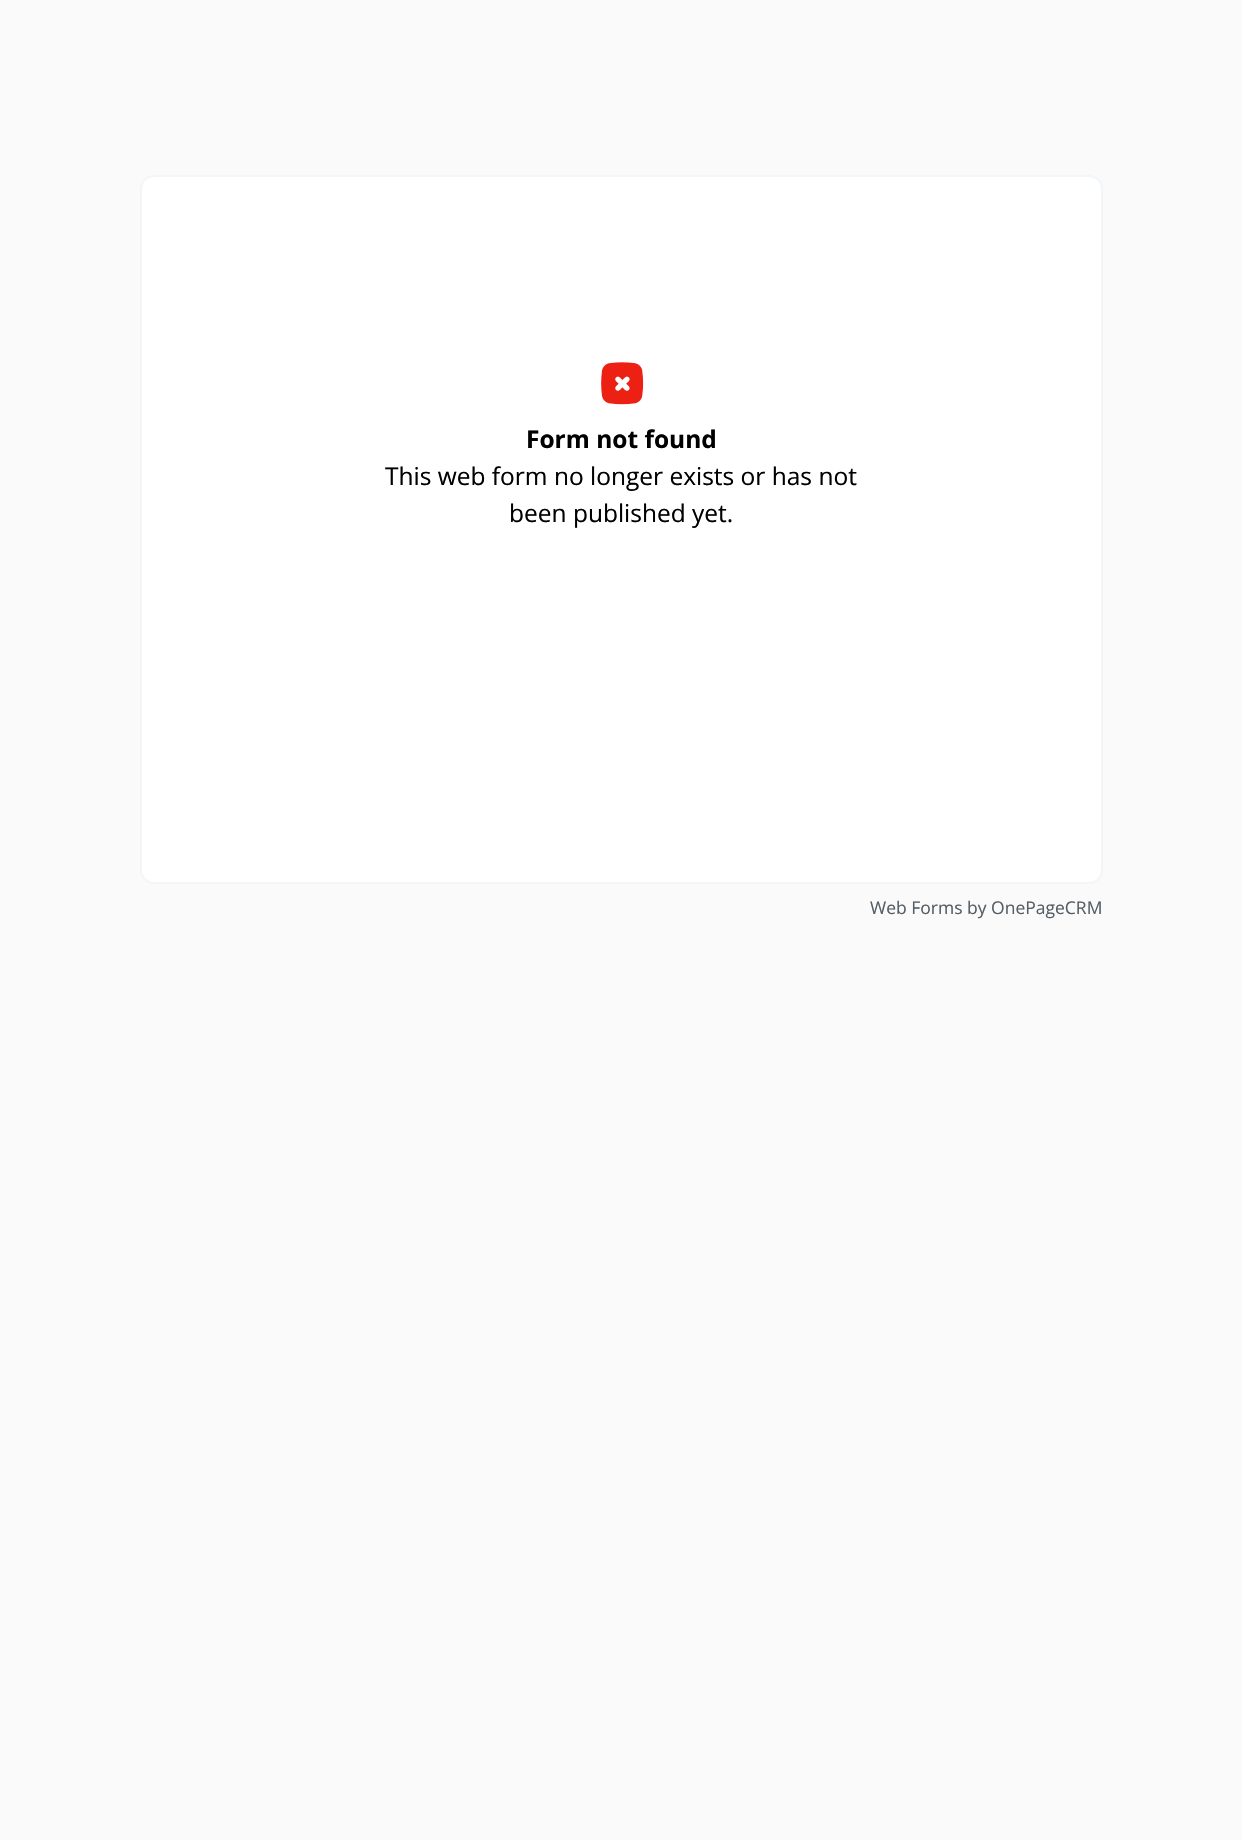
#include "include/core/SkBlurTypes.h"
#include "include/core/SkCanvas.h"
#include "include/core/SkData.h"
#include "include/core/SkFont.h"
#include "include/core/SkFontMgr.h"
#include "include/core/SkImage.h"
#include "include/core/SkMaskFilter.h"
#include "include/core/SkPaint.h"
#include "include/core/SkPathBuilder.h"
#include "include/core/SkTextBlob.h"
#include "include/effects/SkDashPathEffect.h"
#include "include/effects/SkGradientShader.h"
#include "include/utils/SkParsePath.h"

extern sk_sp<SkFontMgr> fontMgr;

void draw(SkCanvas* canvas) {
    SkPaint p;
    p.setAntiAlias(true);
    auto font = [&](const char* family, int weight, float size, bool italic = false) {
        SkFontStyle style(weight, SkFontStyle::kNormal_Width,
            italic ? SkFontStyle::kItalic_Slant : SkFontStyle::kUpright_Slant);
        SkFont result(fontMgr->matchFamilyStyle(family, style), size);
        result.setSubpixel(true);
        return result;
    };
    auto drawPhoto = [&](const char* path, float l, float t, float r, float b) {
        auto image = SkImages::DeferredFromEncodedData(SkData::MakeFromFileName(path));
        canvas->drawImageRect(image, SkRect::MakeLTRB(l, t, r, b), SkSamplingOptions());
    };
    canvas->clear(0xFFFAFAFB);
    p.setColor(0xFFFFFFFF);
    canvas->drawRoundRect(SkRect::MakeLTRB(141, 176, 1102, 883), 13, 13, p);
    p.setStyle(SkPaint::kStroke_Style);
    p.setStrokeWidth(2);
    p.setColor(0xFFF3F6F9);
    canvas->drawRoundRect(SkRect::MakeLTRB(141, 176, 1102, 883), 13, 13, p);
    drawPhoto("media/1.png", 601, 362, 644, 405);
    auto font1 = font("Open Sans", 700, 24.5f);
    p.setStyle(SkPaint::kFill_Style);
    p.setColor(0xFF000000);
    canvas->drawString("Form not found", 526, 448, font1, p);
    auto font2 = font("Open Sans", 400, 24.5f);
    canvas->drawString("This web form no longer exists or has not", 385, 485, font2, p);
    canvas->drawString("been published yet.", 509, 522, font2, p);
    auto font3 = font("Open Sans", 400, 17.5f);
    p.setColor(0xFF555E64);
    canvas->drawString("Web Forms by OnePageCRM", 870, 914, font3, p);
}
